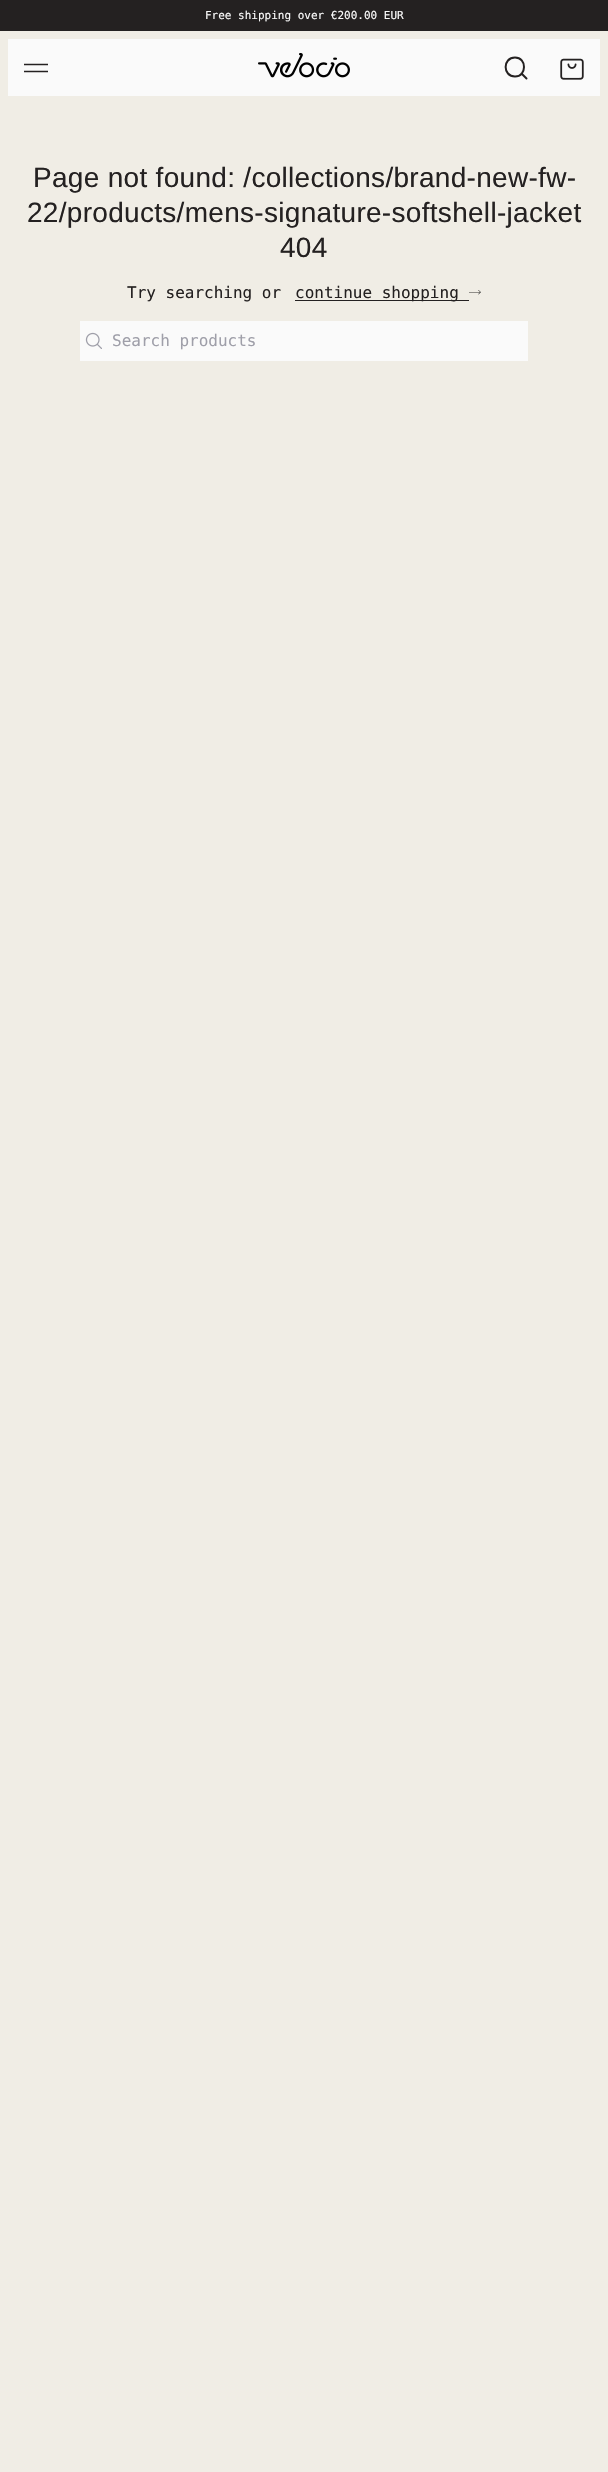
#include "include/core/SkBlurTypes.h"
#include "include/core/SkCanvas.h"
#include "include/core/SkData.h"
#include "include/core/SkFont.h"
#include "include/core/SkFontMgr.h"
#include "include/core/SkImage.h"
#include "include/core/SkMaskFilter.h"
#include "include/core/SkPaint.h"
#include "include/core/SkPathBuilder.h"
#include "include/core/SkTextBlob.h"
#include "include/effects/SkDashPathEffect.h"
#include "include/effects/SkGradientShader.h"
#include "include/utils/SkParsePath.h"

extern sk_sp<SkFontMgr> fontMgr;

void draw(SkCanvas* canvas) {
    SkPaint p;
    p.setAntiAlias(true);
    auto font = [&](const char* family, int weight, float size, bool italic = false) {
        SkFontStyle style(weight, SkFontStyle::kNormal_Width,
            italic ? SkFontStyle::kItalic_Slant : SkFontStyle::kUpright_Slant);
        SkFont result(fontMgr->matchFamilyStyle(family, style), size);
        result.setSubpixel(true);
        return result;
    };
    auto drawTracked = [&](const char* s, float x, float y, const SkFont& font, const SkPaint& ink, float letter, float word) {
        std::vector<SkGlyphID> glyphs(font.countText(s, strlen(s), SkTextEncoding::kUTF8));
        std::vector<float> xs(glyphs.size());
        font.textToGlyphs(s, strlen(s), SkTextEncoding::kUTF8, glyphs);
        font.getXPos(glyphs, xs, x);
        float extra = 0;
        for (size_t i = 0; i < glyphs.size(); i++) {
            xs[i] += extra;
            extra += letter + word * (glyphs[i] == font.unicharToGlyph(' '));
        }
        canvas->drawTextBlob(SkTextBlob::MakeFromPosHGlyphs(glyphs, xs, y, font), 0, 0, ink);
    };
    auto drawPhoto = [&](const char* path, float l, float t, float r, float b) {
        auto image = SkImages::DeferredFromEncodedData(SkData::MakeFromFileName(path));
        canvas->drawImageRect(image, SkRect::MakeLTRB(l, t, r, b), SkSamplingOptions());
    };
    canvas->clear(0xFFF0EDE5);
    p.setColor(0xFF242121);
    canvas->drawRect(SkRect::MakeLTRB(0, 0, 608, 31), p);
    auto font1 = font("DejaVu Sans Mono", 400, 11);
    p.setColor(0xFFFAFAFA);
    canvas->drawString("Free shipping over €200.00 EUR", 205, 19, font1, p);
    canvas->drawRect(SkRect::MakeLTRB(8, 39, 600, 96), p);
    p.setStyle(SkPaint::kStroke_Style);
    p.setStrokeWidth(1.6f);
    p.setColor(0xFF242121);
    canvas->drawPath(SkPathBuilder().moveTo(24, 64.5f).lineTo(48, 64.5f).moveTo(24, 71.5f).lineTo(48, 71.5f).detach(), p);
    drawPhoto("media/1.png", 258, 53, 350, 78);
    p.setStrokeWidth(2);
    p.setStrokeCap(SkPaint::kRound_Cap);
    p.setStrokeJoin(SkPaint::kRound_Join);
    canvas->drawPath(SkPathBuilder().moveTo(521.5f, 73.5f).lineTo(526.5f, 78.5f).moveTo(515, 76.5f).cubicTo(502.5f, 76.5f, 502.5f, 57.5f, 515, 57.5f).cubicTo(527, 57.5f, 527, 76.5f, 515, 76.5f).close().detach(), p);
    drawPhoto("media/2.png", 560, 58, 584, 80);
    auto font2 = font("Liberation Sans", 400, 28);
    p.setStyle(SkPaint::kFill_Style);
    {
        const struct { const char* s; float x, y; } items[] = {
            {"Page not found: /collections/brand-new-fw-", 33, 187},
            {"22/products/mens-signature-softshell-jacket", 27, 222},
            {"404", 280, 257},
        };
        for (auto [s, x, y] : items) {
            drawTracked(s, x, y, font2, p, 0.3f, 0);
        }
    }
    auto font3 = font("DejaVu Sans Mono", 400, 16);
    canvas->drawString("Try searching or", 127, 298, font3, p);
    canvas->drawRect(SkRect::MakeLTRB(295, 300, 469, 301), p);
    canvas->drawString("continue shopping", 295, 298, font3, p);
    drawPhoto("media/3.png", 469, 290, 481, 295);
    p.setColor(0xFFFAFAFA);
    canvas->drawRect(SkRect::MakeLTRB(80, 321, 528, 361), p);
    drawPhoto("media/4.png", 85, 332, 102, 349);
    p.setColor(0xFF9F9FA9);
    canvas->drawString("Search products", 112, 346, font3, p);
}
